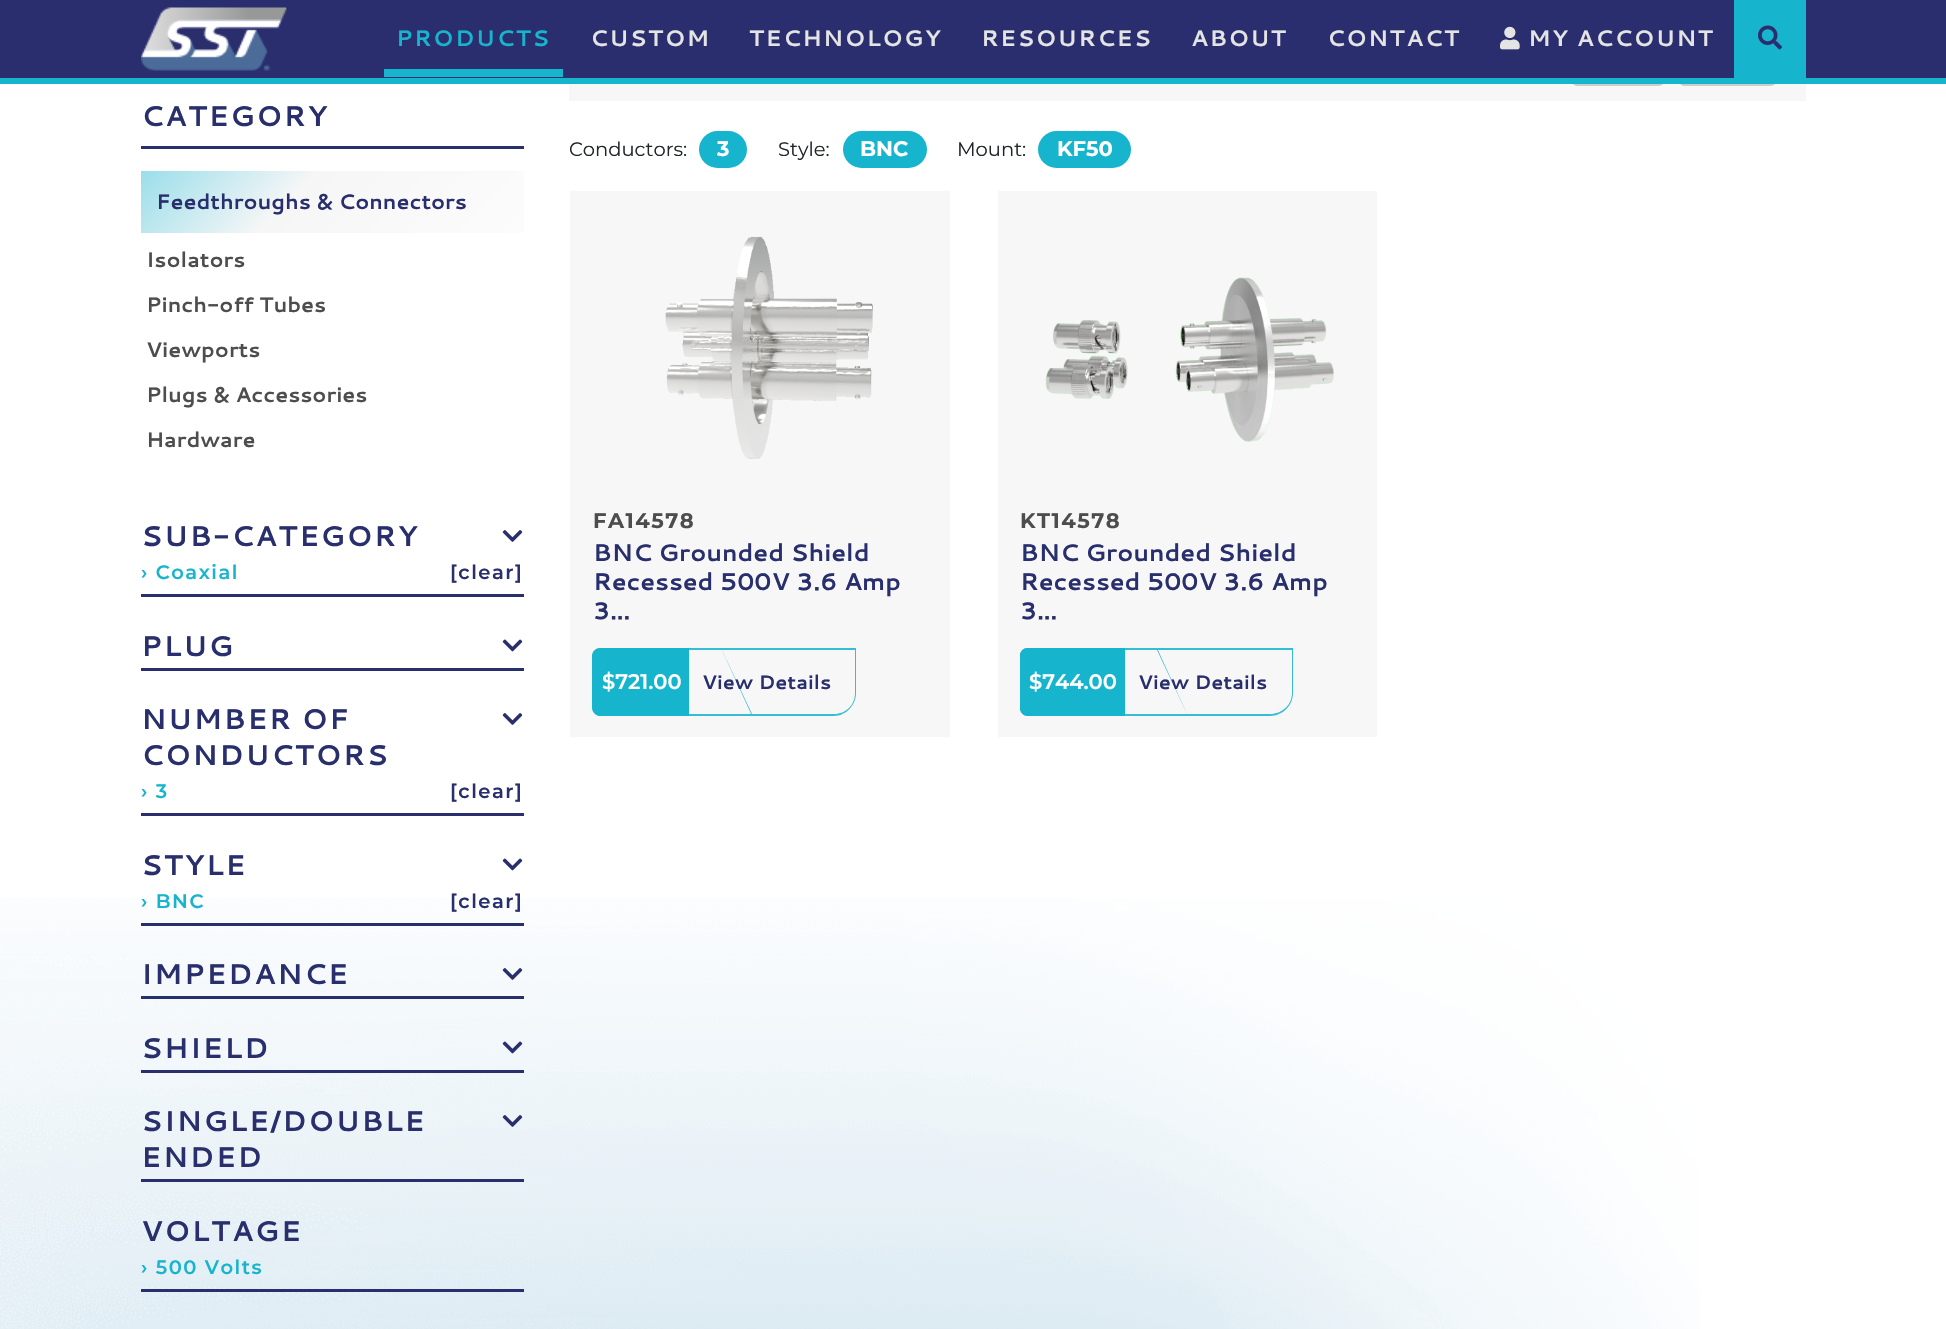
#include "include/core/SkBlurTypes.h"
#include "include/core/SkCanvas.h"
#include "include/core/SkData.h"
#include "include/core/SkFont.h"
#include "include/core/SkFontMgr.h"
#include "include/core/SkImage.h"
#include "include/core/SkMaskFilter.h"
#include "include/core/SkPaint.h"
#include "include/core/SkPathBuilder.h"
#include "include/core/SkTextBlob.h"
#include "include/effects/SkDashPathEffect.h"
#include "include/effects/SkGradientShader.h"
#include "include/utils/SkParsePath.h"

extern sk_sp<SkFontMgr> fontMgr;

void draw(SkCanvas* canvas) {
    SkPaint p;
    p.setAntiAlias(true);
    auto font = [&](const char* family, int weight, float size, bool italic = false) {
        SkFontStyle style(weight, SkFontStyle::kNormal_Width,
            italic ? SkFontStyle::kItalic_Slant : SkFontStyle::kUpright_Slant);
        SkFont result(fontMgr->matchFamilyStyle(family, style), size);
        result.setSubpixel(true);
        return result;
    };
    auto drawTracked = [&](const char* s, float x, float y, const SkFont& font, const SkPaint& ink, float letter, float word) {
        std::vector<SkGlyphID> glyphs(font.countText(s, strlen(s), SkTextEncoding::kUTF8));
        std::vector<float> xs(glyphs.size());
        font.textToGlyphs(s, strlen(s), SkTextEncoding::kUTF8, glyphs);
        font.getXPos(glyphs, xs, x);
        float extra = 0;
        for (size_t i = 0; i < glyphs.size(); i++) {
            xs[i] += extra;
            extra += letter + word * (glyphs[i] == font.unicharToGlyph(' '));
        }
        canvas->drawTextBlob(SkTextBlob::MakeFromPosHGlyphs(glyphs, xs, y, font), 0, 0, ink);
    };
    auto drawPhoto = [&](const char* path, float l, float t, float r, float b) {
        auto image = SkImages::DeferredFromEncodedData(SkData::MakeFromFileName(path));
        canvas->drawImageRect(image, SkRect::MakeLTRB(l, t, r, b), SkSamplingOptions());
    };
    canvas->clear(0xFFFFFFFF);
    p.setColor(0xFFF7F7F7);
    canvas->drawRect(SkRect::MakeLTRB(569, 84, 1806, 101), p);
    p.setStyle(SkPaint::kStroke_Style);
    p.setStrokeWidth(2);
    p.setColor(0xFFCCCCCC);
    canvas->drawRoundRect(SkRect::MakeLTRB(1573, 40, 1663, 85), 4, 4, p);
    canvas->drawRoundRect(SkRect::MakeLTRB(1680, 40, 1775, 85), 4, 4, p);
    p.setStyle(SkPaint::kFill_Style);
    p.setColor(0xFF2A2E6E);
    canvas->drawRect(SkRect::MakeLTRB(0, 0, 1946, 78), p);
    p.setColor(0xFF17B4CE);
    canvas->drawRect(SkRect::MakeLTRB(0, 78, 1946, 84), p);
    drawPhoto("media/1.png", 141, 7, 288, 71);
    auto font1 = font("Cantarell", 700, 22.5f);
    drawTracked("PRODUCTS", 396, 46, font1, p, 1.5f, 0);
    canvas->drawRect(SkRect::MakeLTRB(384, 69, 563, 77), p);
    p.setColor(0xFFE4E4E4);
    {
        const struct { const char* s; float x, y; } items[] = {
            {"CUSTOM", 590, 46},
            {"TECHNOLOGY", 749, 46},
            {"RESOURCES", 981, 46},
            {"ABOUT", 1191, 46},
            {"CONTACT", 1327, 46},
        };
        for (auto [s, x, y] : items) {
            drawTracked(s, x, y, font1, p, 1.5f, 0);
        }
    }
    drawPhoto("media/2.png", 1500, 26, 1520, 50);
    drawTracked("MY ACCOUNT", 1528, 46, font1, p, 1.5f, 0);
    p.setColor(0xFF17B4CE);
    canvas->drawRect(SkRect::MakeLTRB(1734, 0, 1806, 78), p);
    drawPhoto("media/3.png", 1758, 25, 1782, 50);
    drawPhoto("media/4.png", 0, 898, 1700, 1329);
    auto font2 = font("Cantarell", 700, 28.5f);
    p.setColor(0xFF292F6C);
    drawTracked("CATEGORY", 141, 126, font2, p, 1.5f, 0);
    canvas->drawRect(SkRect::MakeLTRB(141, 146, 524, 149), p);
    {
        const SkColor colors[] = {0xFF9ADEEA, 0xFFF6F6F6, 0xFFFCFCFC};
        const float stops[] = {0, 0.4f, 1};
        const SkPoint ends[] = {{221, 91}, {443, 313}};
        p.setShader(SkGradientShader::MakeLinear(ends, colors, stops, 3, SkTileMode::kClamp));
        p.setAlpha(255);
    }
    canvas->drawRect(SkRect::MakeLTRB(141, 171, 524, 233), p);
    auto font3 = font("Cantarell", 700, 21);
    p.setShader(nullptr);
    p.setColor(0xFF292F6C);
    canvas->drawString("Feedthroughs & Connectors", 156, 209, font3, p);
    p.setColor(0xFF4D4D4D);
    {
        const struct { const char* s; float x, y; } items[] = {
            {"Isolators", 146, 267},
            {"Pinch-off Tubes", 146, 312},
            {"Viewports", 146, 357},
            {"Plugs & Accessories", 146, 402},
            {"Hardware", 146, 447},
        };
        for (auto [s, x, y] : items) {
            canvas->drawString(s, x, y, font3, p);
        }
    }
    p.setColor(0xFF292F6C);
    drawTracked("SUB-CATEGORY", 141, 546, font2, p, 1.5f, 0);
    drawPhoto("media/5.png", 502, 530, 523, 542);
    auto font4 = font("Montserrat", 600, 19.5f);
    p.setColor(0xFF17B4CE);
    drawTracked("› Coaxial", 141, 579, font4, p, 1.5f, 0);
    p.setColor(0xFF292F6C);
    drawTracked("[clear]", 450, 579, font4, p, 1.5f, 0);
    canvas->drawRect(SkRect::MakeLTRB(141, 594, 524, 597), p);
    drawTracked("PLUG", 141, 656, font2, p, 1.5f, 0);
    drawPhoto("media/6.png", 502, 639, 523, 652);
    canvas->drawRect(SkRect::MakeLTRB(141, 668, 524, 671), p);
    drawTracked("NUMBER OF", 141, 729, font2, p, 1.5f, 0);
    drawPhoto("media/5.png", 502, 713, 523, 725);
    drawTracked("CONDUCTORS", 141, 765, font2, p, 1.5f, 0);
    p.setColor(0xFF17B4CE);
    drawTracked("› 3", 141, 798, font4, p, 1.5f, 0);
    p.setColor(0xFF292F6C);
    drawTracked("[clear]", 450, 798, font4, p, 1.5f, 0);
    canvas->drawRect(SkRect::MakeLTRB(141, 813, 524, 816), p);
    drawTracked("STYLE", 141, 875, font2, p, 1.5f, 0);
    drawPhoto("media/6.png", 502, 858, 523, 871);
    p.setColor(0xFF17B4CE);
    drawTracked("› BNC", 141, 908, font4, p, 1.5f, 0);
    p.setColor(0xFF292F6C);
    drawTracked("[clear]", 450, 908, font4, p, 1.5f, 0);
    canvas->drawRect(SkRect::MakeLTRB(141, 923, 524, 926), p);
    drawTracked("IMPEDANCE", 141, 984, font2, p, 1.5f, 0);
    drawPhoto("media/7.png", 502, 968, 523, 980);
    canvas->drawRect(SkRect::MakeLTRB(141, 996, 524, 999), p);
    drawTracked("SHIELD", 141, 1058, font2, p, 1.5f, 0);
    drawPhoto("media/8.png", 502, 1041, 523, 1054);
    canvas->drawRect(SkRect::MakeLTRB(141, 1070, 524, 1073), p);
    drawTracked("SINGLE/DOUBLE", 141, 1131, font2, p, 1.5f, 0);
    drawPhoto("media/9.png", 502, 1115, 523, 1127);
    drawTracked("ENDED", 141, 1167, font2, p, 1.5f, 0);
    canvas->drawRect(SkRect::MakeLTRB(141, 1179, 524, 1182), p);
    drawTracked("VOLTAGE", 141, 1241, font2, p, 1.5f, 0);
    p.setColor(0xFF17B4CE);
    drawTracked("› 500 Volts", 141, 1274, font4, p, 1.5f, 0);
    p.setColor(0xFF292F6C);
    canvas->drawRect(SkRect::MakeLTRB(141, 1289, 524, 1292), p);
    auto font5 = font("Montserrat", 400, 19.5f);
    p.setColor(0xFF212529);
    canvas->drawString("Conductors:", 569, 156, font5, p);
    p.setColor(0xFF17B4CE);
    canvas->drawRoundRect(SkRect::MakeLTRB(699, 131, 747, 168), 18.5f, 18.5f, p);
    auto font6 = font("Montserrat", 700, 21);
    p.setColor(0xFFFFFFFF);
    canvas->drawString("3", 717, 156, font6, p);
    p.setColor(0xFF212529);
    canvas->drawString("Style:", 778, 156, font5, p);
    p.setColor(0xFF17B4CE);
    canvas->drawRoundRect(SkRect::MakeLTRB(843, 131, 927, 168), 18.5f, 18.5f, p);
    p.setColor(0xFFFFFFFF);
    canvas->drawString("BNC", 860, 156, font6, p);
    p.setColor(0xFF212529);
    canvas->drawString("Mount:", 957, 156, font5, p);
    p.setColor(0xFF17B4CE);
    canvas->drawRoundRect(SkRect::MakeLTRB(1038, 131, 1131, 168), 18.5f, 18.5f, p);
    p.setColor(0xFFFFFFFF);
    canvas->drawString("KF50", 1057, 156, font6, p);
    p.setColor(0xFFF7F7F7);
    canvas->drawRect(SkRect::MakeLTRB(570, 191, 950, 737), p);
    drawPhoto("media/10.png", 665, 236, 873, 459);
    p.setColor(0xFF4D4D4D);
    drawTracked("FA14578", 593, 528, font6, p, 1.5f, 0);
    auto font7 = font("Cantarell", 700, 24);
    p.setColor(0xFF292F6C);
    {
        const struct { const char* s; float x, y; } items[] = {
            {"BNC Grounded Shield", 593, 561},
            {"Recessed 500V 3.6 Amp", 593, 590},
            {"3...", 593, 619},
        };
        for (auto [s, x, y] : items) {
            canvas->drawString(s, x, y, font7, p);
        }
    }
    p.setColor(0xFF34BDD4);
    canvas->drawPath(SkPathBuilder(SkPathFillType::kEvenOdd).moveTo(678, 648).lineTo(856, 648).lineTo(856, 693).cubicTo(856, 705, 846, 716, 834, 716).lineTo(688, 716).cubicTo(683, 716, 678, 711, 678, 705).close().moveTo(678, 650).lineTo(855, 650).lineTo(855, 693).cubicTo(855, 705, 846, 714, 834, 714).lineTo(688, 714).cubicTo(683, 714, 678, 710, 678, 705).close().detach(), p);
    canvas->drawPath(SkPathBuilder(SkPathFillType::kEvenOdd).moveTo(656, 648).lineTo(721, 648).lineTo(752, 716).lineTo(688, 716).cubicTo(682, 716, 675, 711, 672, 705).lineTo(651, 658).cubicTo(648, 653, 651, 648, 656, 648).close().moveTo(657, 650).lineTo(722, 650).lineTo(752, 714).lineTo(687, 714).cubicTo(682, 714, 676, 710, 674, 705).lineTo(652, 658).cubicTo(650, 654, 652, 650, 657, 650).close().detach(), p);
    p.setColor(0xFF17B4CE);
    canvas->drawPath(SkPathBuilder().moveTo(601, 648).lineTo(689, 648).lineTo(689, 716).lineTo(601, 716).cubicTo(596.5f, 716, 593, 712.5f, 593, 708).lineTo(593, 656).cubicTo(593, 651.5f, 596.5f, 648, 601, 648).close().detach(), p);
    canvas->drawPath(SkPathBuilder(SkPathFillType::kEvenOdd).moveTo(600, 648).lineTo(688, 648).lineTo(688, 716).lineTo(600, 716).cubicTo(596, 716, 592, 712, 592, 708).lineTo(592, 656).cubicTo(592, 651, 596, 648, 600, 648).close().moveTo(600, 650).lineTo(688, 650).lineTo(688, 714).lineTo(600, 714).cubicTo(597, 714, 594, 711, 594, 708).lineTo(594, 656).cubicTo(594, 652, 597, 650, 600, 650).close().detach(), p);
    auto font8 = font("Montserrat", 600, 21);
    p.setColor(0xFFFFFFFF);
    canvas->drawString("$721.00", 602, 689, font8, p);
    auto font9 = font("Cantarell", 700, 19.5f);
    p.setColor(0xFF292F6C);
    canvas->drawString("View Details", 702, 689, font9, p);
    p.setColor(0xFFF7F7F7);
    canvas->drawRect(SkRect::MakeLTRB(998, 191, 1377, 737), p);
    drawPhoto("media/11.png", 1045, 277, 1334, 442);
    p.setColor(0xFF4D4D4D);
    drawTracked("KT14578", 1020, 528, font6, p, 1.5f, 0);
    p.setColor(0xFF292F6C);
    {
        const struct { const char* s; float x, y; } items[] = {
            {"BNC Grounded Shield", 1020, 561},
            {"Recessed 500V 3.6 Amp", 1020, 590},
            {"3...", 1020, 619},
        };
        for (auto [s, x, y] : items) {
            canvas->drawString(s, x, y, font7, p);
        }
    }
    p.setColor(0xFF34BDD4);
    canvas->drawPath(SkPathBuilder(SkPathFillType::kEvenOdd).moveTo(1114, 648).lineTo(1293, 648).lineTo(1293, 693).cubicTo(1293, 705, 1283, 716, 1270, 716).lineTo(1125, 716).cubicTo(1119, 716, 1114, 711, 1114, 705).close().moveTo(1114, 650).lineTo(1292, 650).lineTo(1292, 693).cubicTo(1292, 705, 1282, 714, 1270, 714).lineTo(1125, 714).cubicTo(1119, 714, 1114, 710, 1114, 705).close().detach(), p);
    canvas->drawPath(SkPathBuilder(SkPathFillType::kEvenOdd).moveTo(1092, 648).lineTo(1157, 648).lineTo(1188, 716).lineTo(1124, 716).cubicTo(1118, 716, 1111, 711, 1108, 705).lineTo(1087, 658).cubicTo(1084, 653, 1086, 648, 1092, 648).close().moveTo(1093, 650).lineTo(1157, 650).lineTo(1187, 714).lineTo(1123, 714).cubicTo(1118, 714, 1112, 710, 1110, 705).lineTo(1088, 658).cubicTo(1086, 654, 1088, 650, 1093, 650).close().detach(), p);
    p.setColor(0xFF17B4CE);
    canvas->drawPath(SkPathBuilder().moveTo(1028, 648).lineTo(1125, 648).lineTo(1125, 716).lineTo(1028, 716).cubicTo(1023.5f, 716, 1020, 712.5f, 1020, 708).lineTo(1020, 656).cubicTo(1020, 651.5f, 1023.5f, 648, 1028, 648).close().detach(), p);
    canvas->drawPath(SkPathBuilder(SkPathFillType::kEvenOdd).moveTo(1028, 648).lineTo(1125, 648).lineTo(1125, 716).lineTo(1028, 716).cubicTo(1023, 716, 1020, 712, 1020, 708).lineTo(1020, 656).cubicTo(1020, 651, 1023, 648, 1028, 648).close().moveTo(1028, 650).lineTo(1125, 650).lineTo(1125, 714).lineTo(1028, 714).cubicTo(1024, 714, 1022, 711, 1022, 708).lineTo(1022, 656).cubicTo(1022, 652, 1024, 650, 1028, 650).close().detach(), p);
    p.setColor(0xFFFFFFFF);
    canvas->drawString("$744.00", 1029, 689, font8, p);
    p.setColor(0xFF292F6C);
    canvas->drawString("View Details", 1138, 689, font9, p);
}
